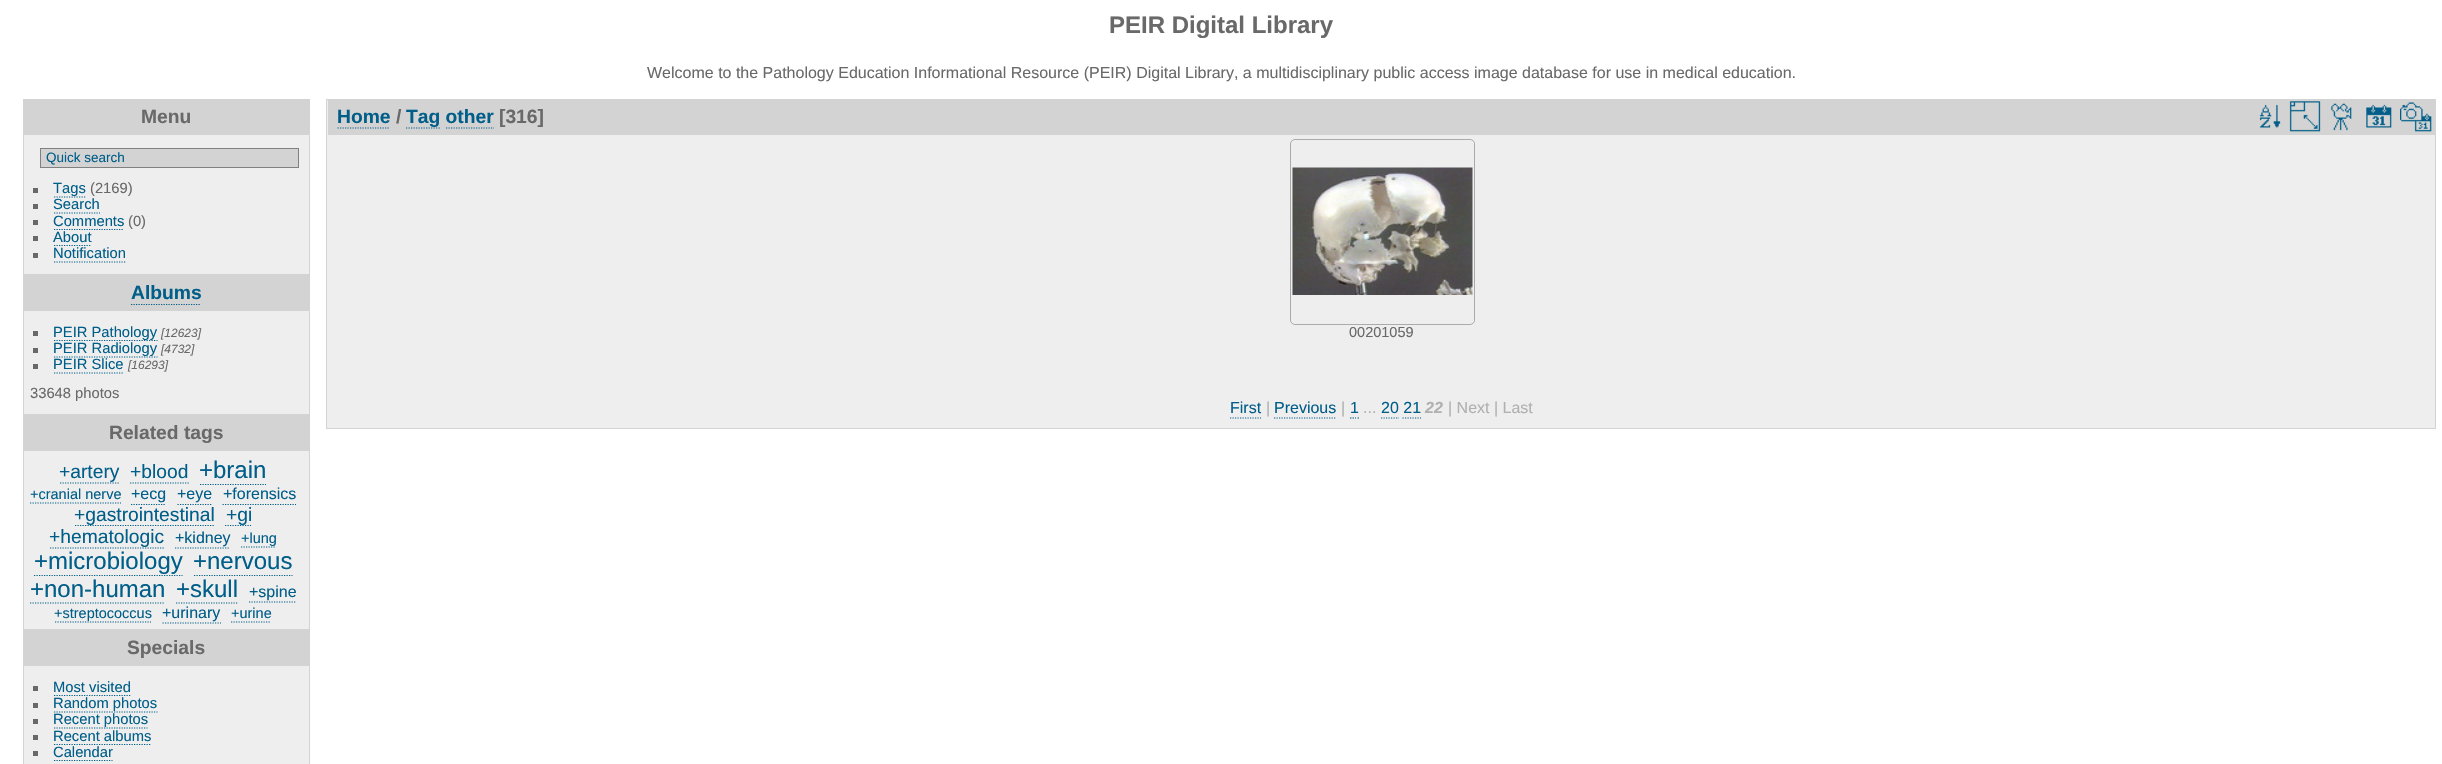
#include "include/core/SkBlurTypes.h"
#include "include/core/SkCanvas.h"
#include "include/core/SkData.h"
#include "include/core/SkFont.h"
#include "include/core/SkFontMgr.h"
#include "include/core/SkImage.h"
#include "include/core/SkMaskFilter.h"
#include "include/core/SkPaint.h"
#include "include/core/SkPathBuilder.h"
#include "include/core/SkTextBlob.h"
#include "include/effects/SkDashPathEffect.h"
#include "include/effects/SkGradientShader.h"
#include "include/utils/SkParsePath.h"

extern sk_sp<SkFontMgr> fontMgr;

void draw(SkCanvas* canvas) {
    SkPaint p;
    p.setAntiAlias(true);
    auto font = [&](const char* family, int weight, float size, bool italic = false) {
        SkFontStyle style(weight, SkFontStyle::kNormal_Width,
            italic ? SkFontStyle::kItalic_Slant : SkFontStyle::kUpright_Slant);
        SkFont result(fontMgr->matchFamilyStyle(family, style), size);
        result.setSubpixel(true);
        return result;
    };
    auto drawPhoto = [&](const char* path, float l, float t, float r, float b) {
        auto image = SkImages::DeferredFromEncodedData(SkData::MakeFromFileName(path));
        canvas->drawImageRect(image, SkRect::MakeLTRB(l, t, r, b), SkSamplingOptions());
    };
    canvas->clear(0xFFFFFFFF);
    auto font1 = font("Liberation Sans", 700, 24);
    p.setColor(0xFF696969);
    canvas->drawString("PEIR Digital Library", 1109, 33, font1, p);
    auto font2 = font("Liberation Sans", 400, 16);
    canvas->drawString("Welcome to the Pathology Education Informational Resource (PEIR) Digital Library, a multidisciplinary public access image database for use in medical education.", 647, 78, font2, p);
    p.setColor(0xFFEEEEEE);
    canvas->drawRect(SkRect::MakeLTRB(24, 135, 309, 274), p);
    p.setStyle(SkPaint::kStroke_Style);
    p.setStrokeWidth(1);
    p.setColor(0xFFD3D3D3);
    canvas->drawRect(SkRect::MakeLTRB(23.5f, 99.5f, 309.5f, 274.5f), p);
    p.setStyle(SkPaint::kFill_Style);
    canvas->drawRect(SkRect::MakeLTRB(24, 100, 309, 135), p);
    auto font3 = font("Liberation Sans", 700, 19.25f);
    p.setColor(0xFF696969);
    canvas->drawString("Menu", 141, 123, font3, p);
    p.setColor(0xFFD3D3D3);
    canvas->drawRect(SkRect::MakeLTRB(40.5f, 148.5f, 298.5f, 167.5f), p);
    p.setStyle(SkPaint::kStroke_Style);
    p.setColor(0xFF808080);
    canvas->drawRect(SkRect::MakeLTRB(40.5f, 148.5f, 298.5f, 167.5f), p);
    auto font4 = font("Liberation Sans", 400, 13.5f);
    p.setStyle(SkPaint::kFill_Style);
    p.setColor(0xFF005E89);
    canvas->drawString("Quick search", 46, 162, font4, p);
    p.setColor(0xFF696969);
    canvas->drawRect(SkRect::MakeLTRB(33, 188, 38, 193), p);
    p.setStyle(SkPaint::kStroke_Style);
    p.setStrokeWidth(1.2f);
    p.setColor(0xFF005E89);
    p.setPathEffect(SkDashPathEffect::Make({{1.25f, 1.25f}}, 0));
    canvas->drawPath(SkPathBuilder().moveTo(54, 197).lineTo(86, 197).detach(), p);
    p.setPathEffect(nullptr);
    auto font5 = font("Liberation Sans", 400, 14.75f);
    p.setStyle(SkPaint::kFill_Style);
    canvas->drawString("Tags", 53, 193, font5, p);
    p.setColor(0xFF696969);
    canvas->drawString("(2169)", 90, 193, font5, p);
    canvas->drawRect(SkRect::MakeLTRB(33, 204, 38, 209), p);
    p.setColor(0xFF005E89);
    canvas->drawString("Search", 53, 209, font5, p);
    p.setStyle(SkPaint::kStroke_Style);
    p.setPathEffect(SkDashPathEffect::Make({{1.25f, 1.25f}}, 0));
    canvas->drawPath(SkPathBuilder().moveTo(54, 213).lineTo(100, 213).detach(), p);
    p.setPathEffect(nullptr);
    p.setStyle(SkPaint::kFill_Style);
    p.setColor(0xFF696969);
    canvas->drawRect(SkRect::MakeLTRB(33, 220, 38, 225), p);
    p.setColor(0xFF005E89);
    canvas->drawString("Comments", 53, 226, font5, p);
    p.setStyle(SkPaint::kStroke_Style);
    p.setPathEffect(SkDashPathEffect::Make({{1.25f, 1.25f}}, 0));
    canvas->drawPath(SkPathBuilder().moveTo(54, 229.5f).lineTo(124, 229.5f).detach(), p);
    p.setPathEffect(nullptr);
    p.setStyle(SkPaint::kFill_Style);
    p.setColor(0xFF696969);
    canvas->drawString("(0)", 128, 226, font5, p);
    canvas->drawRect(SkRect::MakeLTRB(33, 236, 38, 241), p);
    p.setColor(0xFF005E89);
    canvas->drawString("About", 53, 242, font5, p);
    p.setStyle(SkPaint::kStroke_Style);
    p.setPathEffect(SkDashPathEffect::Make({{1.25f, 1.25f}}, 0));
    canvas->drawPath(SkPathBuilder().moveTo(54, 245.5f).lineTo(91, 245.5f).detach(), p);
    p.setPathEffect(nullptr);
    p.setStyle(SkPaint::kFill_Style);
    p.setColor(0xFF696969);
    canvas->drawRect(SkRect::MakeLTRB(33, 253, 38, 258), p);
    p.setColor(0xFF005E89);
    canvas->drawString("Notification", 53, 258, font5, p);
    p.setStyle(SkPaint::kStroke_Style);
    p.setPathEffect(SkDashPathEffect::Make({{1.25f, 1.25f}}, 0));
    canvas->drawPath(SkPathBuilder().moveTo(54, 262).lineTo(126, 262).detach(), p);
    p.setPathEffect(nullptr);
    p.setStyle(SkPaint::kFill_Style);
    p.setColor(0xFFEEEEEE);
    canvas->drawRect(SkRect::MakeLTRB(24, 311, 309, 414), p);
    p.setStyle(SkPaint::kStroke_Style);
    p.setStrokeWidth(1);
    p.setColor(0xFFD3D3D3);
    canvas->drawRect(SkRect::MakeLTRB(23.5f, 275.5f, 309.5f, 414.5f), p);
    p.setStyle(SkPaint::kFill_Style);
    canvas->drawRect(SkRect::MakeLTRB(24, 276, 309, 311), p);
    p.setColor(0xFF005E89);
    canvas->drawString("Albums", 131, 299, font3, p);
    p.setStyle(SkPaint::kStroke_Style);
    p.setStrokeWidth(1.2f);
    p.setPathEffect(SkDashPathEffect::Make({{1.25f, 1.25f}}, 0));
    canvas->drawPath(SkPathBuilder().moveTo(131, 304.5f).lineTo(201, 304.5f).detach(), p);
    p.setPathEffect(nullptr);
    p.setStyle(SkPaint::kFill_Style);
    p.setColor(0xFF696969);
    canvas->drawRect(SkRect::MakeLTRB(33, 331, 38, 336), p);
    p.setStyle(SkPaint::kStroke_Style);
    p.setColor(0xFF005E89);
    p.setPathEffect(SkDashPathEffect::Make({{1.25f, 1.25f}}, 0));
    canvas->drawPath(SkPathBuilder().moveTo(54, 340.5f).lineTo(157.5f, 340.5f).detach(), p);
    p.setPathEffect(nullptr);
    p.setStyle(SkPaint::kFill_Style);
    canvas->drawString("PEIR Pathology", 53, 337, font5, p);
    auto font6 = font("Liberation Sans", 400, 12, true);
    p.setColor(0xFF696969);
    canvas->drawString("[12623]", 161, 337, font6, p);
    canvas->drawRect(SkRect::MakeLTRB(33, 348, 38, 353), p);
    p.setStyle(SkPaint::kStroke_Style);
    p.setColor(0xFF005E89);
    p.setPathEffect(SkDashPathEffect::Make({{1.25f, 1.25f}}, 0));
    canvas->drawPath(SkPathBuilder().moveTo(54, 357).lineTo(157.5f, 357).detach(), p);
    p.setPathEffect(nullptr);
    p.setStyle(SkPaint::kFill_Style);
    canvas->drawString("PEIR Radiology", 53, 353, font5, p);
    p.setColor(0xFF696969);
    canvas->drawString("[4732]", 161, 353, font6, p);
    canvas->drawRect(SkRect::MakeLTRB(33, 364, 38, 369), p);
    p.setColor(0xFF005E89);
    canvas->drawString("PEIR Slice", 53, 369, font5, p);
    p.setStyle(SkPaint::kStroke_Style);
    p.setPathEffect(SkDashPathEffect::Make({{1.25f, 1.25f}}, 0));
    canvas->drawPath(SkPathBuilder().moveTo(54, 373).lineTo(124, 373).detach(), p);
    p.setPathEffect(nullptr);
    p.setStyle(SkPaint::kFill_Style);
    p.setColor(0xFF696969);
    canvas->drawString("[16293]", 128, 369, font6, p);
    canvas->drawString("33648 photos", 30, 398, font5, p);
    p.setColor(0xFFEEEEEE);
    canvas->drawRect(SkRect::MakeLTRB(24, 451, 309, 629), p);
    p.setStyle(SkPaint::kStroke_Style);
    p.setStrokeWidth(1);
    p.setColor(0xFFD3D3D3);
    canvas->drawRect(SkRect::MakeLTRB(23.5f, 415.5f, 309.5f, 629.5f), p);
    p.setStyle(SkPaint::kFill_Style);
    canvas->drawRect(SkRect::MakeLTRB(24, 416, 309, 451), p);
    p.setColor(0xFF696969);
    canvas->drawString("Related tags", 109, 439, font3, p);
    auto font7 = font("Liberation Sans", 400, 19.25f);
    p.setColor(0xFF005E89);
    canvas->drawString("+artery", 59, 478, font7, p);
    p.setStyle(SkPaint::kStroke_Style);
    p.setStrokeWidth(1.2f);
    p.setPathEffect(SkDashPathEffect::Make({{1.25f, 1.25f}}, 0));
    canvas->drawPath(SkPathBuilder().moveTo(60, 483).lineTo(120, 483).detach(), p);
    p.setPathEffect(nullptr);
    p.setStyle(SkPaint::kFill_Style);
    canvas->drawString("+blood", 130, 478, font7, p);
    p.setStyle(SkPaint::kStroke_Style);
    p.setPathEffect(SkDashPathEffect::Make({{1.25f, 1.25f}}, 0));
    canvas->drawPath(SkPathBuilder().moveTo(130, 483).lineTo(189, 483).detach(), p);
    p.setPathEffect(nullptr);
    auto font8 = font("Liberation Sans", 400, 24);
    p.setStyle(SkPaint::kFill_Style);
    canvas->drawString("+brain", 199, 478, font8, p);
    p.setStyle(SkPaint::kStroke_Style);
    p.setPathEffect(SkDashPathEffect::Make({{1.25f, 1.25f}}, 0));
    canvas->drawPath(SkPathBuilder().moveTo(200, 484.5f).lineTo(266, 484.5f).detach(), p);
    p.setPathEffect(nullptr);
    auto font9 = font("Liberation Sans", 400, 14.5f);
    p.setStyle(SkPaint::kFill_Style);
    canvas->drawString("+cranial nerve", 30, 499, font9, p);
    p.setStyle(SkPaint::kStroke_Style);
    p.setPathEffect(SkDashPathEffect::Make({{1.25f, 1.25f}}, 0));
    canvas->drawPath(SkPathBuilder().moveTo(30, 503).lineTo(121, 503).detach(), p);
    p.setPathEffect(nullptr);
    p.setStyle(SkPaint::kFill_Style);
    canvas->drawString("+ecg", 131, 499, font2, p);
    p.setStyle(SkPaint::kStroke_Style);
    p.setPathEffect(SkDashPathEffect::Make({{1.25f, 1.25f}}, 0));
    canvas->drawPath(SkPathBuilder().moveTo(131, 504.5f).lineTo(166, 504.5f).detach(), p);
    p.setPathEffect(nullptr);
    p.setStyle(SkPaint::kFill_Style);
    canvas->drawString("+eye", 177, 499, font2, p);
    p.setStyle(SkPaint::kStroke_Style);
    p.setPathEffect(SkDashPathEffect::Make({{1.25f, 1.25f}}, 0));
    canvas->drawPath(SkPathBuilder().moveTo(177.5f, 504.5f).lineTo(212.5f, 504.5f).detach(), p);
    p.setPathEffect(nullptr);
    p.setStyle(SkPaint::kFill_Style);
    canvas->drawString("+forensics", 223, 499, font2, p);
    p.setStyle(SkPaint::kStroke_Style);
    p.setPathEffect(SkDashPathEffect::Make({{1.25f, 1.25f}}, 0));
    canvas->drawPath(SkPathBuilder().moveTo(222.5f, 504.5f).lineTo(296, 504.5f).detach(), p);
    p.setPathEffect(nullptr);
    p.setPathEffect(SkDashPathEffect::Make({{1.25f, 1.25f}}, 0));
    canvas->drawPath(SkPathBuilder().moveTo(75, 525.5f).lineTo(215, 525.5f).detach(), p);
    p.setPathEffect(nullptr);
    p.setStyle(SkPaint::kFill_Style);
    canvas->drawString("+gastrointestinal", 74, 521, font7, p);
    p.setStyle(SkPaint::kStroke_Style);
    p.setPathEffect(SkDashPathEffect::Make({{1.25f, 1.25f}}, 0));
    canvas->drawPath(SkPathBuilder().moveTo(225, 525.5f).lineTo(251, 525.5f).detach(), p);
    p.setPathEffect(nullptr);
    p.setStyle(SkPaint::kFill_Style);
    canvas->drawString("+gi", 226, 521, font7, p);
    canvas->drawString("+hematologic", 49, 543, font7, p);
    p.setStyle(SkPaint::kStroke_Style);
    p.setPathEffect(SkDashPathEffect::Make({{1.25f, 1.25f}}, 0));
    canvas->drawPath(SkPathBuilder().moveTo(50, 548).lineTo(164, 548).detach(), p);
    p.setPathEffect(nullptr);
    p.setStyle(SkPaint::kFill_Style);
    canvas->drawString("+kidney", 175, 543, font2, p);
    p.setStyle(SkPaint::kStroke_Style);
    p.setPathEffect(SkDashPathEffect::Make({{1.25f, 1.25f}}, 0));
    canvas->drawPath(SkPathBuilder().moveTo(175, 548).lineTo(230, 548).detach(), p);
    p.setPathEffect(nullptr);
    p.setStyle(SkPaint::kFill_Style);
    canvas->drawString("+lung", 241, 543, font9, p);
    p.setStyle(SkPaint::kStroke_Style);
    p.setPathEffect(SkDashPathEffect::Make({{1.25f, 1.25f}}, 0));
    canvas->drawPath(SkPathBuilder().moveTo(241, 547).lineTo(276, 547).detach(), p);
    p.setPathEffect(nullptr);
    p.setStyle(SkPaint::kFill_Style);
    canvas->drawString("+microbiology", 34, 569, font8, p);
    p.setStyle(SkPaint::kStroke_Style);
    p.setPathEffect(SkDashPathEffect::Make({{1.25f, 1.25f}}, 0));
    canvas->drawPath(SkPathBuilder().moveTo(34, 575.5f).lineTo(182.5f, 575.5f).detach(), p);
    p.setPathEffect(nullptr);
    p.setStyle(SkPaint::kFill_Style);
    canvas->drawString("+nervous", 193, 569, font8, p);
    p.setStyle(SkPaint::kStroke_Style);
    p.setPathEffect(SkDashPathEffect::Make({{1.25f, 1.25f}}, 0));
    canvas->drawPath(SkPathBuilder().moveTo(194, 575.5f).lineTo(292.5f, 575.5f).detach(), p);
    p.setPathEffect(nullptr);
    p.setStyle(SkPaint::kFill_Style);
    canvas->drawString("+non-human", 30, 597, font8, p);
    p.setStyle(SkPaint::kStroke_Style);
    p.setPathEffect(SkDashPathEffect::Make({{1.25f, 1.25f}}, 0));
    canvas->drawPath(SkPathBuilder().moveTo(30, 603).lineTo(165, 603).detach(), p);
    p.setPathEffect(nullptr);
    p.setStyle(SkPaint::kFill_Style);
    canvas->drawString("+skull", 176, 597, font8, p);
    p.setStyle(SkPaint::kStroke_Style);
    p.setPathEffect(SkDashPathEffect::Make({{1.25f, 1.25f}}, 0));
    canvas->drawPath(SkPathBuilder().moveTo(176, 603).lineTo(237.5f, 603).detach(), p);
    p.setPathEffect(nullptr);
    p.setStyle(SkPaint::kFill_Style);
    canvas->drawString("+spine", 249, 597, font2, p);
    p.setStyle(SkPaint::kStroke_Style);
    p.setPathEffect(SkDashPathEffect::Make({{1.25f, 1.25f}}, 0));
    canvas->drawPath(SkPathBuilder().moveTo(249, 602).lineTo(296, 602).detach(), p);
    p.setPathEffect(nullptr);
    p.setStyle(SkPaint::kFill_Style);
    canvas->drawString("+streptococcus", 54, 618, font9, p);
    p.setStyle(SkPaint::kStroke_Style);
    p.setPathEffect(SkDashPathEffect::Make({{1.25f, 1.25f}}, 0));
    canvas->drawPath(SkPathBuilder().moveTo(55, 622).lineTo(151, 622).detach(), p);
    p.setPathEffect(nullptr);
    p.setStyle(SkPaint::kFill_Style);
    canvas->drawString("+urinary", 162, 618, font2, p);
    p.setStyle(SkPaint::kStroke_Style);
    p.setPathEffect(SkDashPathEffect::Make({{1.25f, 1.25f}}, 0));
    canvas->drawPath(SkPathBuilder().moveTo(162.5f, 623).lineTo(221, 623).detach(), p);
    p.setPathEffect(nullptr);
    p.setStyle(SkPaint::kFill_Style);
    canvas->drawString("+urine", 231, 618, font9, p);
    p.setStyle(SkPaint::kStroke_Style);
    p.setPathEffect(SkDashPathEffect::Make({{1.25f, 1.25f}}, 0));
    canvas->drawPath(SkPathBuilder().moveTo(231, 622).lineTo(271, 622).detach(), p);
    p.setPathEffect(nullptr);
    p.setStyle(SkPaint::kFill_Style);
    p.setColor(0xFFEEEEEE);
    canvas->drawRect(SkRect::MakeLTRB(24, 666, 309, 764), p);
    p.setStyle(SkPaint::kStroke_Style);
    p.setStrokeWidth(1);
    p.setColor(0xFFD3D3D3);
    canvas->drawRect(SkRect::MakeLTRB(23.5f, 630.5f, 309.5f, 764.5f), p);
    p.setStyle(SkPaint::kFill_Style);
    canvas->drawRect(SkRect::MakeLTRB(24, 631, 309, 666), p);
    p.setColor(0xFF696969);
    canvas->drawString("Specials", 127, 654, font3, p);
    canvas->drawRect(SkRect::MakeLTRB(33, 686, 38, 691), p);
    p.setColor(0xFF005E89);
    canvas->drawString("Most visited", 53, 692, font5, p);
    p.setStyle(SkPaint::kStroke_Style);
    p.setStrokeWidth(1.2f);
    p.setPathEffect(SkDashPathEffect::Make({{1.25f, 1.25f}}, 0));
    canvas->drawPath(SkPathBuilder().moveTo(54, 695.5f).lineTo(131, 695.5f).detach(), p);
    p.setPathEffect(nullptr);
    p.setStyle(SkPaint::kFill_Style);
    p.setColor(0xFF696969);
    canvas->drawRect(SkRect::MakeLTRB(33, 703, 38, 708), p);
    p.setStyle(SkPaint::kStroke_Style);
    p.setColor(0xFF005E89);
    p.setPathEffect(SkDashPathEffect::Make({{1.25f, 1.25f}}, 0));
    canvas->drawPath(SkPathBuilder().moveTo(54, 712).lineTo(157.5f, 712).detach(), p);
    p.setPathEffect(nullptr);
    p.setStyle(SkPaint::kFill_Style);
    canvas->drawString("Random photos", 53, 708, font5, p);
    p.setColor(0xFF696969);
    canvas->drawRect(SkRect::MakeLTRB(33, 719, 38, 724), p);
    p.setStyle(SkPaint::kStroke_Style);
    p.setColor(0xFF005E89);
    p.setPathEffect(SkDashPathEffect::Make({{1.25f, 1.25f}}, 0));
    canvas->drawPath(SkPathBuilder().moveTo(54, 728).lineTo(147.5f, 728).detach(), p);
    p.setPathEffect(nullptr);
    p.setStyle(SkPaint::kFill_Style);
    canvas->drawString("Recent photos", 53, 724, font5, p);
    p.setColor(0xFF696969);
    canvas->drawRect(SkRect::MakeLTRB(33, 735, 38, 740), p);
    p.setColor(0xFF005E89);
    canvas->drawString("Recent albums", 53, 741, font5, p);
    p.setStyle(SkPaint::kStroke_Style);
    p.setPathEffect(SkDashPathEffect::Make({{1.25f, 1.25f}}, 0));
    canvas->drawPath(SkPathBuilder().moveTo(54, 744.5f).lineTo(151, 744.5f).detach(), p);
    p.setPathEffect(nullptr);
    p.setStyle(SkPaint::kFill_Style);
    p.setColor(0xFF696969);
    canvas->drawRect(SkRect::MakeLTRB(33, 751, 38, 756), p);
    p.setColor(0xFF005E89);
    canvas->drawString("Calendar", 53, 757, font5, p);
    p.setStyle(SkPaint::kStroke_Style);
    p.setPathEffect(SkDashPathEffect::Make({{1.25f, 1.25f}}, 0));
    canvas->drawPath(SkPathBuilder().moveTo(54, 760.5f).lineTo(112.5f, 760.5f).detach(), p);
    p.setPathEffect(nullptr);
    p.setStyle(SkPaint::kFill_Style);
    p.setColor(0xFFEEEEEE);
    canvas->drawRect(SkRect::MakeLTRB(326.5f, 99.5f, 2435.5f, 428.5f), p);
    p.setStyle(SkPaint::kStroke_Style);
    p.setStrokeWidth(1);
    p.setColor(0xFFD3D3D3);
    canvas->drawRect(SkRect::MakeLTRB(326.5f, 99.5f, 2435.5f, 428.5f), p);
    p.setStyle(SkPaint::kFill_Style);
    canvas->drawRect(SkRect::MakeLTRB(328, 100, 2435, 135), p);
    p.setColor(0xFF005E89);
    canvas->drawString("Home", 337, 123, font3, p);
    p.setStyle(SkPaint::kStroke_Style);
    p.setStrokeWidth(1.2f);
    p.setPathEffect(SkDashPathEffect::Make({{1.25f, 1.25f}}, 0));
    canvas->drawPath(SkPathBuilder().moveTo(337.5f, 128).lineTo(390, 128).detach(), p);
    p.setPathEffect(nullptr);
    p.setStyle(SkPaint::kFill_Style);
    p.setColor(0xFF696969);
    canvas->drawString("/", 396, 123, font3, p);
    p.setStyle(SkPaint::kStroke_Style);
    p.setColor(0xFF005E89);
    p.setPathEffect(SkDashPathEffect::Make({{1.25f, 1.25f}}, 0));
    canvas->drawPath(SkPathBuilder().moveTo(406, 128).lineTo(440, 128).detach(), p);
    p.setPathEffect(nullptr);
    p.setStyle(SkPaint::kFill_Style);
    canvas->drawString("Tag other", 406, 123, font3, p);
    p.setColor(0xFF696969);
    canvas->drawString("[316]", 499, 123, font3, p);
    p.setStyle(SkPaint::kStroke_Style);
    p.setColor(0xFF005E89);
    p.setPathEffect(SkDashPathEffect::Make({{1.25f, 1.25f}}, 0));
    canvas->drawPath(SkPathBuilder().moveTo(446, 128).lineTo(494, 128).detach(), p);
    p.setPathEffect(nullptr);
    drawPhoto("media/1.png", 2259, 104, 2281, 128);
    drawPhoto("media/2.png", 2289, 101, 2321, 132);
    drawPhoto("media/3.png", 2331, 103, 2352, 131);
    drawPhoto("media/4.png", 2366, 104, 2392, 128);
    drawPhoto("media/5.png", 2400, 102, 2432, 132);
    p.setStrokeWidth(1);
    p.setColor(0xFFAAAAAA);
    canvas->drawRoundRect(SkRect::MakeLTRB(1290.5f, 139.5f, 1474.5f, 324.5f), 4.5f, 4.5f, p);
    drawPhoto("media/6.png", 1292, 167, 1473, 295);
    p.setStyle(SkPaint::kFill_Style);
    p.setColor(0xFF696969);
    canvas->drawString("00201059", 1349, 337, font9, p);
    p.setColor(0xFF005E89);
    canvas->drawString("First", 1230, 413, font2, p);
    p.setStyle(SkPaint::kStroke_Style);
    p.setStrokeWidth(1.2f);
    p.setPathEffect(SkDashPathEffect::Make({{1.25f, 1.25f}}, 0));
    canvas->drawPath(SkPathBuilder().moveTo(1230, 418).lineTo(1261, 418).detach(), p);
    p.setPathEffect(nullptr);
    p.setStyle(SkPaint::kFill_Style);
    p.setColor(0xFFB0B0B0);
    canvas->drawString("|", 1266, 413, font2, p);
    p.setColor(0xFF005E89);
    canvas->drawString("Previous", 1274, 413, font2, p);
    p.setStyle(SkPaint::kStroke_Style);
    p.setPathEffect(SkDashPathEffect::Make({{1.25f, 1.25f}}, 0));
    canvas->drawPath(SkPathBuilder().moveTo(1274, 418).lineTo(1336, 418).detach(), p);
    p.setPathEffect(nullptr);
    p.setStyle(SkPaint::kFill_Style);
    p.setColor(0xFFB0B0B0);
    canvas->drawString("|", 1341, 413, font2, p);
    p.setColor(0xFF005E89);
    canvas->drawString("1", 1350, 413, font2, p);
    p.setStyle(SkPaint::kStroke_Style);
    canvas->drawPath(SkPathBuilder().moveTo(1350, 418).lineTo(1351.5f, 418).moveTo(1352.5f, 418).lineTo(1354, 418).moveTo(1355, 418).lineTo(1356, 418).moveTo(1357.5f, 418).lineTo(1359, 418).detach(), p);
    p.setStyle(SkPaint::kFill_Style);
    p.setColor(0xFFB0B0B0);
    canvas->drawString("...", 1363, 413, font2, p);
    p.setColor(0xFF005E89);
    canvas->drawString("20 21", 1381, 413, font2, p);
    p.setStyle(SkPaint::kStroke_Style);
    p.setPathEffect(SkDashPathEffect::Make({{1.25f, 1.25f}}, 0));
    canvas->drawPath(SkPathBuilder().moveTo(1381, 418).lineTo(1399, 418).detach(), p);
    p.setPathEffect(nullptr);
    auto font10 = font("Liberation Sans", 700, 16, true);
    p.setStyle(SkPaint::kFill_Style);
    p.setColor(0xFFB0B0B0);
    canvas->drawString("22", 1425, 413, font10, p);
    canvas->drawString("| Next | Last", 1448, 413, font2, p);
    p.setStyle(SkPaint::kStroke_Style);
    p.setColor(0xFF005E89);
    p.setPathEffect(SkDashPathEffect::Make({{1.25f, 1.25f}}, 0));
    canvas->drawPath(SkPathBuilder().moveTo(1402.5f, 418).lineTo(1421, 418).detach(), p);
    p.setPathEffect(nullptr);
}
